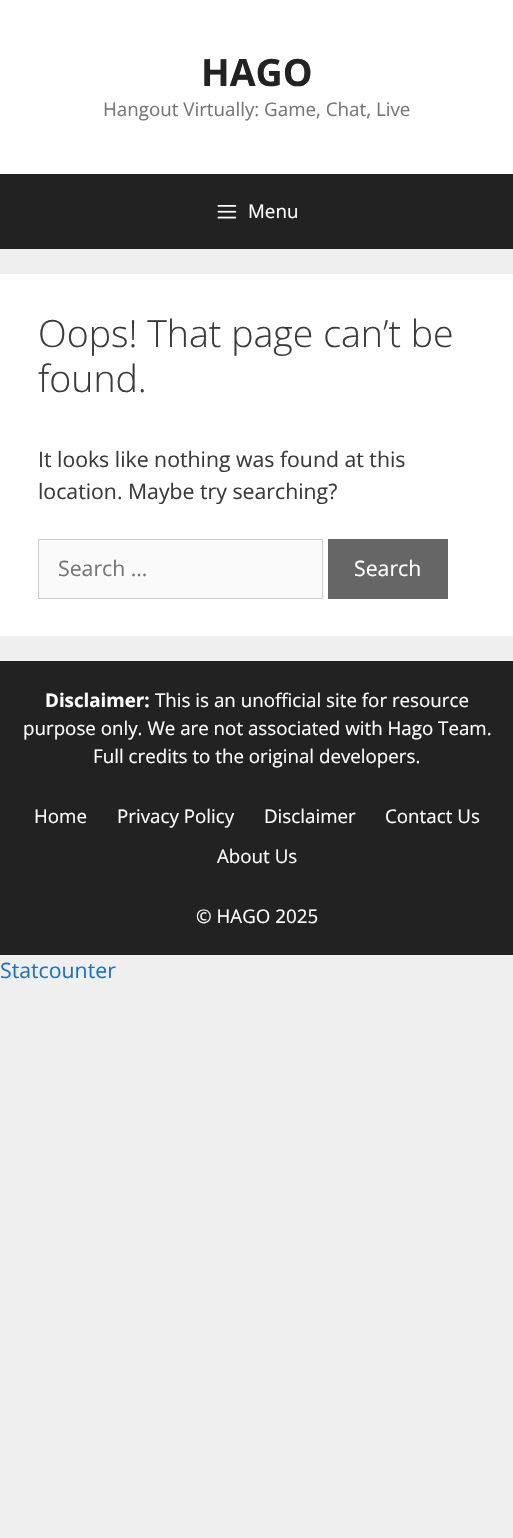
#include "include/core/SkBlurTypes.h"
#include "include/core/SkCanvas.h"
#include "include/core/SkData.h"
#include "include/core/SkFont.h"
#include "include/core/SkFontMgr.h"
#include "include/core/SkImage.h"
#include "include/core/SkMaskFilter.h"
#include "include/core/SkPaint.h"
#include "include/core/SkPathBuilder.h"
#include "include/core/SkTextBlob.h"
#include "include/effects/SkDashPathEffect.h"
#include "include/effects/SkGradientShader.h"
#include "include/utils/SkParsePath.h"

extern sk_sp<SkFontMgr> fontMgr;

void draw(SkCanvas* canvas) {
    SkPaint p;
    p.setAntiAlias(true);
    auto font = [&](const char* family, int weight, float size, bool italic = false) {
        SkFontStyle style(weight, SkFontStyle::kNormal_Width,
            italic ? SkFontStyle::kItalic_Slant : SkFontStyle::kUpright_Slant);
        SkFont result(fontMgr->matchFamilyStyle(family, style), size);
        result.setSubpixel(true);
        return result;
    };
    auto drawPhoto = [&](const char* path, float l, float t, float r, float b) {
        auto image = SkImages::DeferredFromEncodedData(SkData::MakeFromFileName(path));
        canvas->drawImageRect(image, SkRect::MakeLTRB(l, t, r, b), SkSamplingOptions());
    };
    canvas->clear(0xFFEFEFEF);
    p.setColor(0xFFFFFFFF);
    canvas->drawRect(SkRect::MakeLTRB(0, 0, 513, 174), p);
    auto font1 = font("Open Sans", 700, 37.5f);
    p.setColor(0xFF222222);
    canvas->drawString("HAGO", 201, 86, font1, p);
    auto font2 = font("Open Sans", 400, 18.75f);
    p.setColor(0xFF757575);
    canvas->drawString("Hangout Virtually: Game, Chat, Live", 103, 116, font2, p);
    p.setColor(0xFF222222);
    canvas->drawRect(SkRect::MakeLTRB(0, 174, 513, 249), p);
    drawPhoto("media/1.png", 217, 205, 237, 219);
    p.setColor(0xFFFFFFFF);
    canvas->drawString("Menu", 248, 218, font2, p);
    canvas->drawRect(SkRect::MakeLTRB(0, 274, 513, 636), p);
    auto font3 = font("Open Sans", 300, 37.5f);
    p.setColor(0xFF3A3A3A);
    canvas->drawString("Oops! That page can’t be", 38, 347, font3, p);
    canvas->drawString("found.", 38, 392, font3, p);
    auto font4 = font("Open Sans", 400, 21.25f);
    canvas->drawString("It looks like nothing was found at this", 38, 467, font4, p);
    canvas->drawString("location. Maybe try searching?", 38, 499, font4, p);
    p.setColor(0xFFFAFAFA);
    canvas->drawRect(SkRect::MakeLTRB(38.5f, 539.5f, 322.5f, 598.5f), p);
    p.setStyle(SkPaint::kStroke_Style);
    p.setStrokeWidth(1);
    p.setColor(0xFFCCCCCC);
    canvas->drawRect(SkRect::MakeLTRB(38.5f, 539.5f, 322.5f, 598.5f), p);
    p.setStyle(SkPaint::kFill_Style);
    p.setColor(0xFF757575);
    canvas->drawString("Search …", 58, 576, font4, p);
    p.setColor(0xFF666666);
    canvas->drawRect(SkRect::MakeLTRB(328, 539, 448, 599), p);
    p.setColor(0xFFFFFFFF);
    canvas->drawString("Search", 354, 576, font4, p);
    p.setColor(0xFF222222);
    canvas->drawRect(SkRect::MakeLTRB(0, 661, 513, 955), p);
    auto font5 = font("Open Sans", 700, 18.75f);
    p.setColor(0xFFFFFFFF);
    canvas->drawString("Disclaimer:", 45, 707, font5, p);
    {
        const struct { const char* s; float x, y; } items[] = {
            {"This is an unofficial site for resource", 155, 707},
            {"purpose only. We are not associated with Hago Team.", 23, 735},
            {"Full credits to the original developers.", 93, 763},
            {"Home", 34, 823},
            {"Privacy Policy", 117, 823},
            {"Disclaimer", 264, 823},
            {"Contact Us", 385, 823},
            {"About Us", 217, 863},
            {"© HAGO 2025", 196, 923},
        };
        for (auto [s, x, y] : items) {
            canvas->drawString(s, x, y, font2, p);
        }
    }
    p.setColor(0xFF1E73BE);
    canvas->drawString("Statcounter", 0, 978, font4, p);
}
